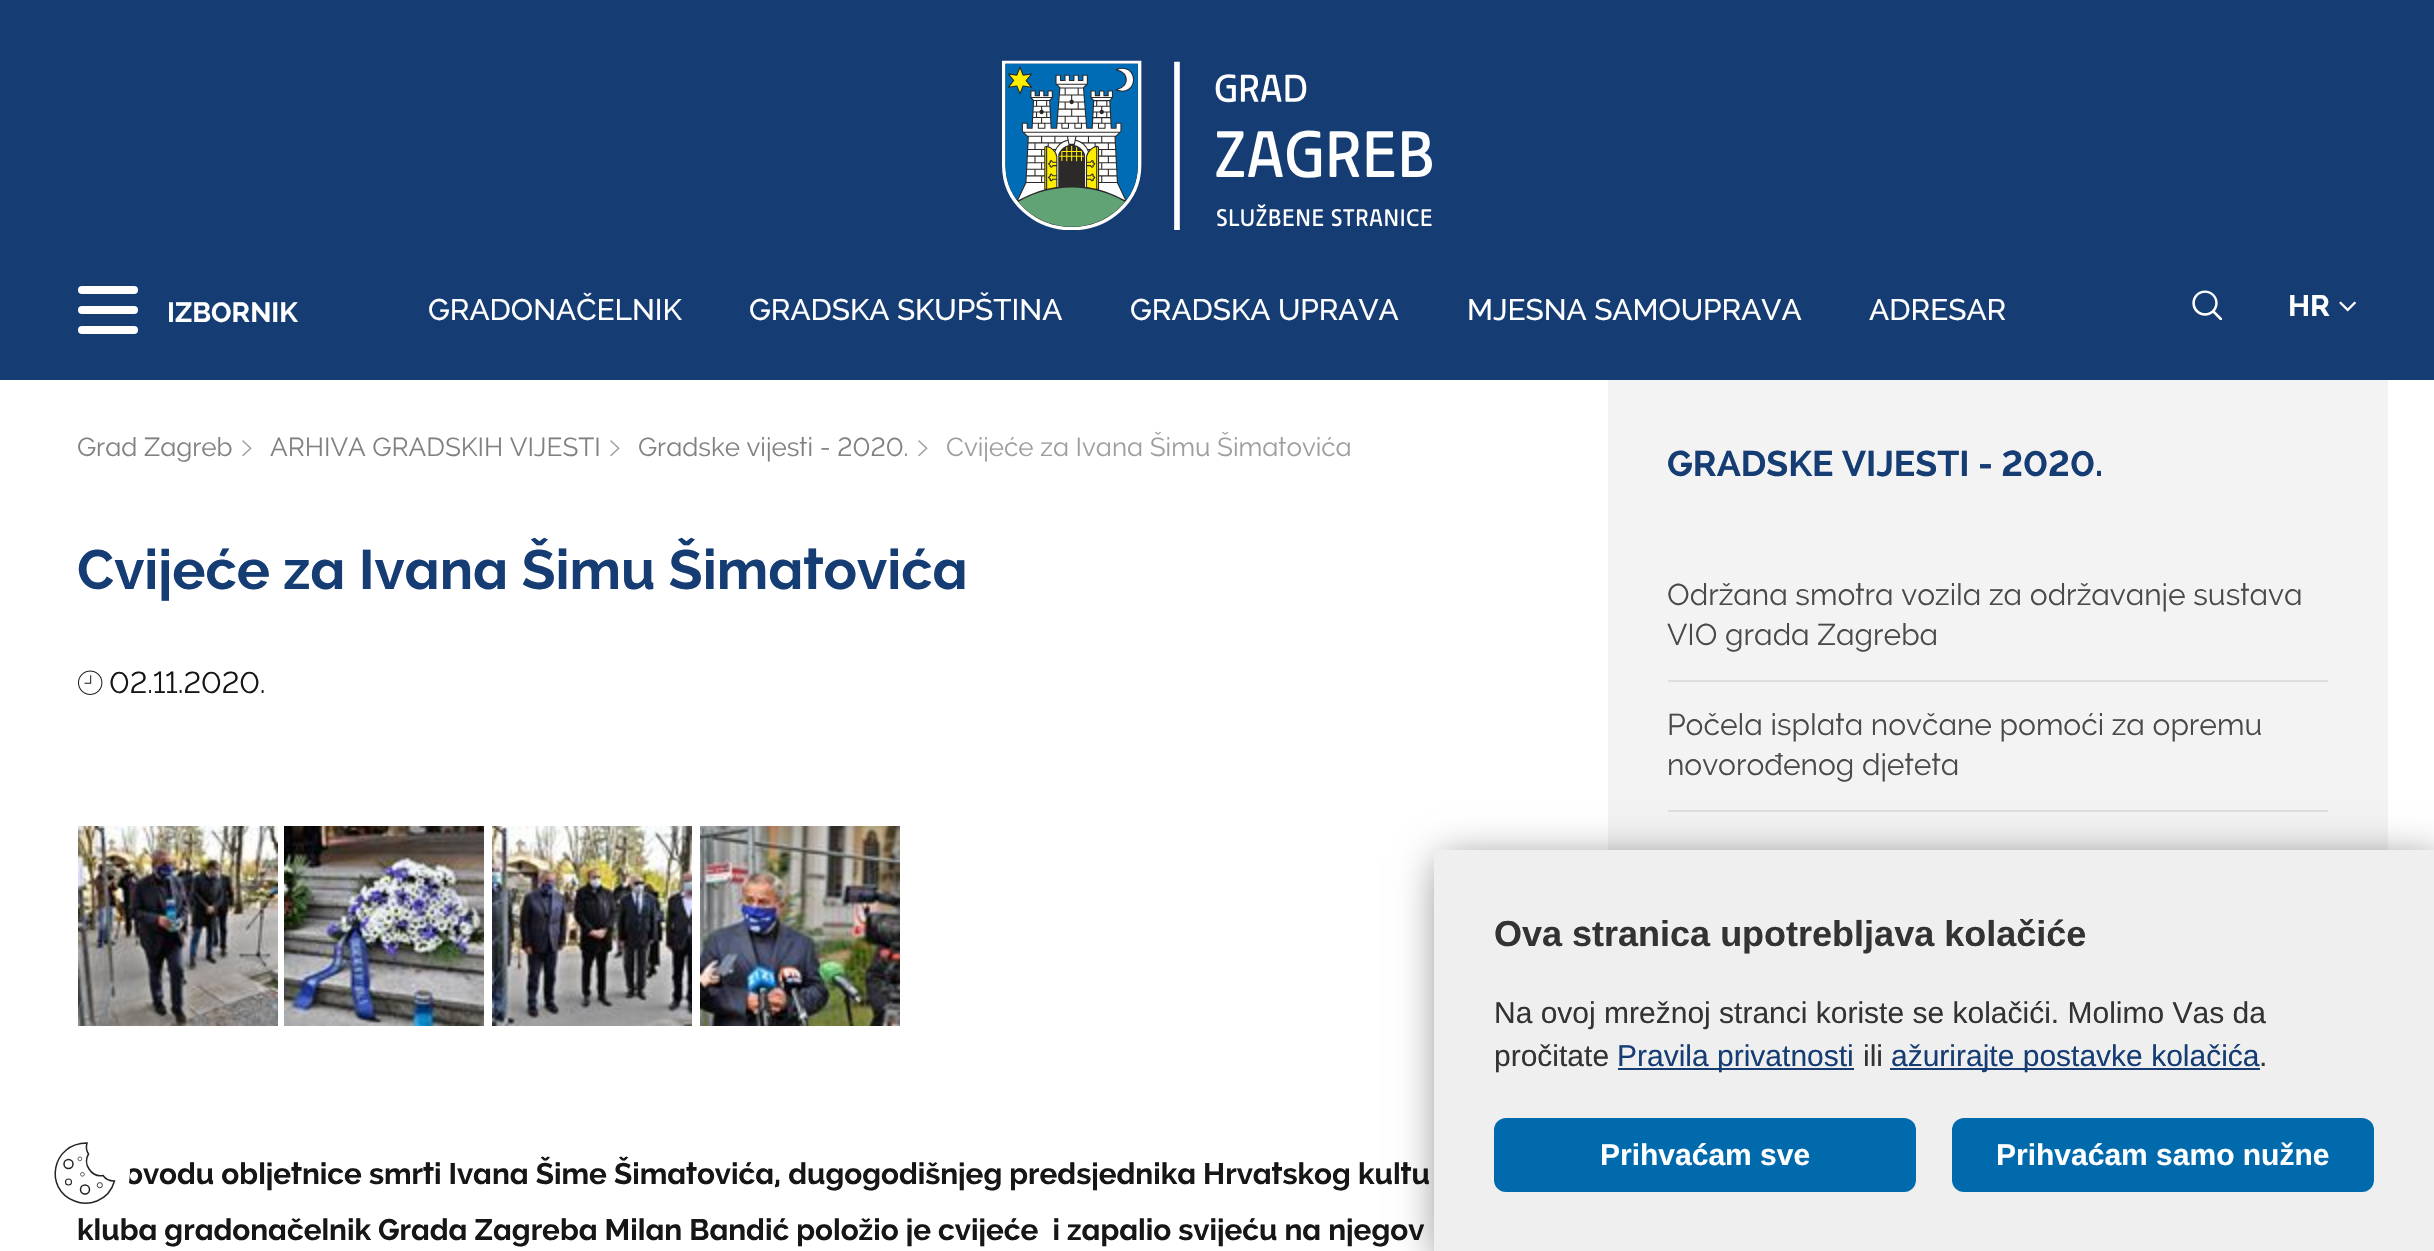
#include "include/core/SkBlurTypes.h"
#include "include/core/SkCanvas.h"
#include "include/core/SkData.h"
#include "include/core/SkFont.h"
#include "include/core/SkFontMgr.h"
#include "include/core/SkImage.h"
#include "include/core/SkMaskFilter.h"
#include "include/core/SkPaint.h"
#include "include/core/SkPathBuilder.h"
#include "include/core/SkTextBlob.h"
#include "include/effects/SkDashPathEffect.h"
#include "include/effects/SkGradientShader.h"
#include "include/utils/SkParsePath.h"

extern sk_sp<SkFontMgr> fontMgr;

void draw(SkCanvas* canvas) {
    SkPaint p;
    p.setAntiAlias(true);
    auto font = [&](const char* family, int weight, float size, bool italic = false) {
        SkFontStyle style(weight, SkFontStyle::kNormal_Width,
            italic ? SkFontStyle::kItalic_Slant : SkFontStyle::kUpright_Slant);
        SkFont result(fontMgr->matchFamilyStyle(family, style), size);
        result.setSubpixel(true);
        return result;
    };
    auto drawPhoto = [&](const char* path, float l, float t, float r, float b) {
        auto image = SkImages::DeferredFromEncodedData(SkData::MakeFromFileName(path));
        canvas->drawImageRect(image, SkRect::MakeLTRB(l, t, r, b), SkSamplingOptions());
    };
    canvas->clear(0xFFFFFFFF);
    p.setColor(0xFF163D73);
    canvas->drawRect(SkRect::MakeLTRB(0, 0, 2434, 380), p);
    drawPhoto("media/1.png", 1002, 60, 1432, 230);
    p.setColor(0xFFFFFFFF);
    canvas->drawRoundRect(SkRect::MakeLTRB(78, 326, 138, 334), 4, 4, p);
    canvas->drawRoundRect(SkRect::MakeLTRB(78, 286, 138, 294), 4, 4, p);
    canvas->drawRoundRect(SkRect::MakeLTRB(78, 306, 138, 314), 4, 4, p);
    auto font1 = font("Raleway", 700, 28);
    canvas->drawString("IZBORNIK", 167, 322, font1, p);
    auto font2 = font("Raleway", 500, 30);
    {
        const struct { const char* s; float x, y; } items[] = {
            {"GRADONAČELNIK", 428, 320},
            {"GRADSKA SKUPŠTINA", 749, 320},
            {"GRADSKA UPRAVA", 1130, 320},
            {"MJESNA SAMOUPRAVA", 1467, 320},
            {"ADRESAR", 1869, 320},
        };
        for (auto [s, x, y] : items) {
            canvas->drawString(s, x, y, font2, p);
        }
    }
    drawPhoto("media/2.png", 2192, 290, 2222, 320);
    auto font3 = font("Raleway", 700, 30);
    canvas->drawString("HR", 2288, 316, font3, p);
    drawPhoto("media/3.png", 2339, 301, 2356, 312);
    auto font4 = font("Raleway", 400, 26);
    p.setColor(0xFF818181);
    canvas->drawString("Grad Zagreb", 77, 456, font4, p);
    drawPhoto("media/4.png", 242, 440, 252, 457);
    canvas->drawString("ARHIVA GRADSKIH VIJESTI", 270, 456, font4, p);
    drawPhoto("media/4.png", 610, 440, 620, 457);
    canvas->drawString("Gradske vijesti - 2020.", 638, 456, font4, p);
    drawPhoto("media/4.png", 918, 440, 928, 457);
    p.setColor(0xFF9E9E9E);
    canvas->drawString("Cvijeće za Ivana Šimu Šimatovića", 946, 456, font4, p);
    auto font5 = font("Raleway", 700, 56);
    p.setColor(0xFF163D73);
    canvas->drawString("Cvijeće za Ivana Šimu Šimatovića", 77, 589, font5, p);
    drawPhoto("media/5.png", 78, 670, 103, 695);
    auto font6 = font("Raleway", 400, 30);
    p.setColor(0xFF161616);
    canvas->drawString("02.11.2020.", 109, 693, font6, p);
    drawPhoto("media/6.png", 78, 826, 278, 1026);
    drawPhoto("media/7.png", 284, 826, 484, 1026);
    drawPhoto("media/8.png", 492, 826, 692, 1026);
    drawPhoto("media/9.png", 700, 826, 900, 1026);
    canvas->drawString("ovodu obljetnice smrti Ivana Šime Šimatovića, dugogodišnjeg predsjednika Hrvatskog kultu", 125, 1184, font3, p);
    canvas->drawString("kluba gradonačelnik Grada Zagreba Milan Bandić položio je cvijeće  i zapalio svijeću na njegov", 77, 1240, font3, p);
    p.setColor(0xFFF3F3F3);
    canvas->drawRect(SkRect::MakeLTRB(1608, 380, 2388, 850), p);
    auto font7 = font("Raleway", 700, 36);
    p.setColor(0xFF163D73);
    canvas->drawString("GRADSKE VIJESTI - 2020.", 1667, 476, font7, p);
    p.setColor(0xFFDEDEDE);
    canvas->drawRect(SkRect::MakeLTRB(1668, 680, 2328, 682), p);
    p.setColor(0xFF4A4A4A);
    canvas->drawString("Održana smotra vozila za održavanje sustava", 1667, 605, font6, p);
    canvas->drawString("VIO grada Zagreba", 1667, 645, font6, p);
    p.setColor(0xFFDEDEDE);
    canvas->drawRect(SkRect::MakeLTRB(1668, 810, 2328, 812), p);
    p.setColor(0xFF4A4A4A);
    canvas->drawString("Počela isplata novčane pomoći za opremu", 1667, 735, font6, p);
    canvas->drawString("novorođenog djeteta", 1667, 775, font6, p);
    p.setColor(0xFFFFFFFF);
    canvas->drawCircle(85, 1173, 45, p);
    p.setStyle(SkPaint::kStroke_Style);
    p.setStrokeWidth(1.5f);
    p.setColor(0xFF222323);
    canvas->drawPath(SkPathBuilder().moveTo(114, 1181).cubicTo(109.5f, 1181, 105.5f, 1179, 103, 1175.5f).cubicTo(91.5f, 1177.5f, 82.5f, 1164, 88.5f, 1154).cubicTo(86.5f, 1151, 86, 1146.5f, 87, 1143).cubicTo(51.5f, 1143, 43.5f, 1189.5f, 74.5f, 1201).cubicTo(81.5f, 1204, 89.5f, 1204, 97, 1201).cubicTo(105.5f, 1197.5f, 112, 1190, 114.5f, 1181).close().detach(), p);
    canvas->drawCircle(68.5f, 1164, 4.5f, p);
    canvas->drawCircle(85, 1189.5f, 4.5f, p);
    p.setStrokeWidth(1.1f);
    canvas->drawCircle(68.5f, 1182, 3, p);
    p.setStrokeWidth(0.9f);
    canvas->drawCircle(99.8f, 1185.2f, 2.6f, p);
    p.setStrokeWidth(0.7f);
    canvas->drawCircle(82.4f, 1174.3f, 1.9f, p);
    canvas->drawCircle(79.9f, 1158.9f, 1.9f, p);
    p.setStyle(SkPaint::kFill_Style);
    p.setColor(0x80000000);
    p.setMaskFilter(SkMaskFilter::MakeBlur(kNormal_SkBlurStyle, 20));
    canvas->drawRect(SkRect::MakeLTRB(1440, 860, 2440, 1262), p);
    p.setMaskFilter(nullptr);
    p.setColor(0xFFEFEFEF);
    canvas->drawRect(SkRect::MakeLTRB(1434, 850, 2434, 1251), p);
    auto font8 = font("Liberation Sans", 700, 36);
    p.setColor(0xFF333333);
    canvas->drawString("Ova stranica upotrebljava kolačiće", 1494, 946, font8, p);
    auto font9 = font("Liberation Sans", 400, 30);
    canvas->drawString("Na ovoj mrežnoj stranci koriste se kolačići. Molimo Vas da", 1494, 1023, font9, p);
    canvas->drawString("pročitate", 1494, 1066, font9, p);
    p.setColor(0xFF163D73);
    canvas->drawRect(SkRect::MakeLTRB(1618, 1068, 1854, 1070), p);
    canvas->drawString("Pravila privatnosti", 1617, 1066, font9, p);
    p.setColor(0xFF333333);
    canvas->drawString("ili", 1863, 1066, font9, p);
    p.setColor(0xFF163D73);
    canvas->drawRect(SkRect::MakeLTRB(1890, 1068, 2260, 1070), p);
    canvas->drawString("ažurirajte postavke kolačića", 1891, 1066, font9, p);
    p.setColor(0xFF333333);
    canvas->drawString(".", 2259, 1066, font9, p);
    p.setColor(0xFF006AAD);
    canvas->drawRoundRect(SkRect::MakeLTRB(1494, 1118, 1916, 1192), 12, 12, p);
    auto font10 = font("Liberation Sans", 700, 30);
    p.setColor(0xFFFFFFFF);
    canvas->drawString("Prihvaćam sve", 1600, 1165, font10, p);
    p.setColor(0xFF006AAD);
    canvas->drawRoundRect(SkRect::MakeLTRB(1952, 1118, 2374, 1192), 12, 12, p);
    p.setColor(0xFFFFFFFF);
    canvas->drawString("Prihvaćam samo nužne", 1996, 1165, font10, p);
}
